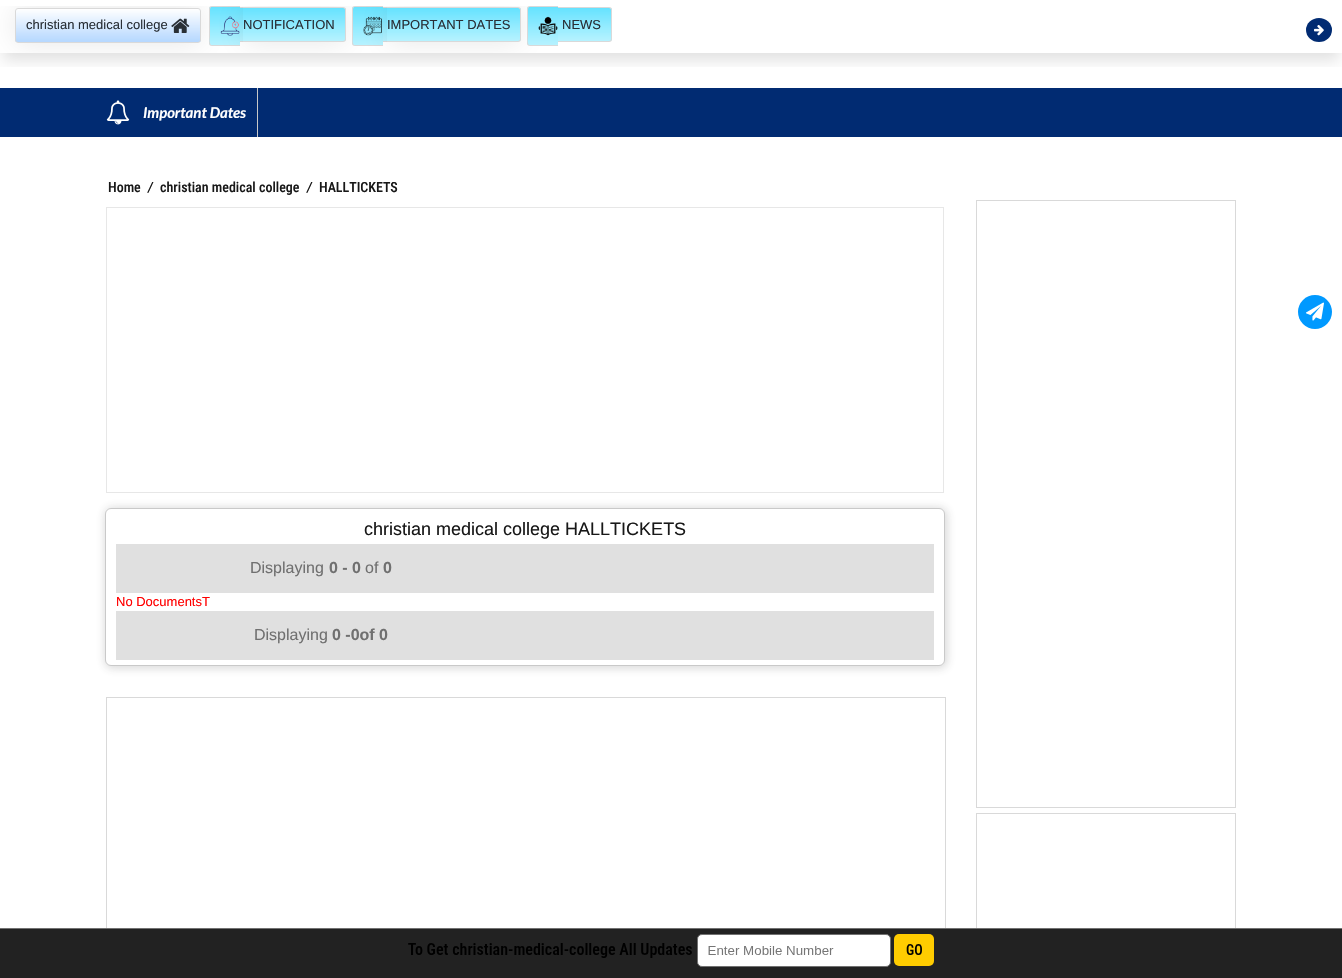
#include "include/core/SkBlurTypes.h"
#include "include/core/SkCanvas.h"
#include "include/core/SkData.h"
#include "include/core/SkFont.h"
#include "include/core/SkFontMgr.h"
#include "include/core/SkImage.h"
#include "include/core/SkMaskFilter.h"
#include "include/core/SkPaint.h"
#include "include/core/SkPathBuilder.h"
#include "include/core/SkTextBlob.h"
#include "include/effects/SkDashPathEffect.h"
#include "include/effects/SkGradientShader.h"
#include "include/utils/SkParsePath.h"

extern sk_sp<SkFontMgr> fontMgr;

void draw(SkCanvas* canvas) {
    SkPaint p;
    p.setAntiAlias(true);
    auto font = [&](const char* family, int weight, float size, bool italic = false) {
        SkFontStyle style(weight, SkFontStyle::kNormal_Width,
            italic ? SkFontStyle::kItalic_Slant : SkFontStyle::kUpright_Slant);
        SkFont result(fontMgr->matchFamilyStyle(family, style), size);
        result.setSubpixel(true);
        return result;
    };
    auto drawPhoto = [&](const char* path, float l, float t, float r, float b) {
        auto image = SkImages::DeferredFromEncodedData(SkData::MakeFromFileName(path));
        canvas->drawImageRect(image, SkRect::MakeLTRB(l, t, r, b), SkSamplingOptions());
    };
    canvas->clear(0xFFFFFFFF);
    canvas->save();
    canvas->clipRect(SkRect::MakeLTRB(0, 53, 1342, 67));
    p.setColor(0x1F000000);
    p.setMaskFilter(SkMaskFilter::MakeBlur(kNormal_SkBlurStyle, 7.5f));
    canvas->drawRect(SkRect::MakeLTRB(3, 19, 1339, 60), p);
    p.setMaskFilter(nullptr);
    canvas->restore();
    canvas->save();
    canvas->clipRect(SkRect::MakeLTRB(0, 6, 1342, 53));
    canvas->clipPath(SkPathBuilder(SkPathFillType::kEvenOdd).moveTo(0, 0).lineTo(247, 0).lineTo(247, 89).lineTo(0, 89).close().moveTo(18, 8).lineTo(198, 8).cubicTo(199.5f, 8, 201, 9.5f, 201, 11).lineTo(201, 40).cubicTo(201, 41.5f, 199.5f, 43, 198, 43).lineTo(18, 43).cubicTo(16.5f, 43, 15, 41.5f, 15, 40).lineTo(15, 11).cubicTo(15, 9.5f, 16.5f, 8, 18, 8).close().detach(), true);
    p.setColor(0x1A181818);
    p.setMaskFilter(SkMaskFilter::MakeBlur(kNormal_SkBlurStyle, 15));
    canvas->drawRoundRect(SkRect::MakeLTRB(15, 8, 201, 43), 3, 3, p);
    p.setMaskFilter(nullptr);
    canvas->restore();
    canvas->save();
    canvas->clipPath(SkPathBuilder().moveTo(18, 8).lineTo(198, 8).cubicTo(199.5f, 8, 201, 9.5f, 201, 11).lineTo(201, 40).cubicTo(201, 41.5f, 199.5f, 43, 198, 43).lineTo(18, 43).cubicTo(16.5f, 43, 15, 41.5f, 15, 40).lineTo(15, 11).cubicTo(15, 9.5f, 16.5f, 8, 18, 8).close().detach(), true);
    {
        const SkColor colors[] = {0xE664ACFF, 0xFFFFFFFF};
        const float stops[] = {0, 1};
        const SkPoint ends[] = {{108, 75}, {108, 9}};
        p.setShader(SkGradientShader::MakeLinear(ends, colors, stops, 2, SkTileMode::kClamp));
        p.setAlpha(255);
    }
    canvas->drawRect(SkRect::MakeLTRB(15, 9, 201, 42), p);
    canvas->restore();
    p.setStyle(SkPaint::kStroke_Style);
    p.setStrokeWidth(1);
    p.setShader(nullptr);
    p.setColor(0xFFD9D9D9);
    canvas->drawRoundRect(SkRect::MakeLTRB(15.5f, 8.5f, 200.5f, 42.5f), 2.5f, 2.5f, p);
    auto font1 = font("Liberation Sans", 400, 13);
    p.setStyle(SkPaint::kFill_Style);
    p.setColor(0xFF292F36);
    canvas->drawString("christian medical college", 26, 29, font1, p);
    drawPhoto("media/1.png", 171, 18, 190, 33);
    canvas->save();
    canvas->clipPath(SkPathBuilder().moveTo(212, 6).lineTo(240, 6).lineTo(240, 46).lineTo(212, 46).cubicTo(210.5f, 46, 209, 44.5f, 209, 43).lineTo(209, 9).cubicTo(209, 7.5f, 210.5f, 6, 212, 6).close().detach(), true);
    {
        const SkColor colors[] = {0xE6FFFFFF, 0xFF65E3FF};
        const float stops[] = {0, 1};
        const SkPoint ends[] = {{225, 83}, {225, 7}};
        p.setShader(SkGradientShader::MakeLinear(ends, colors, stops, 2, SkTileMode::kClamp));
        p.setAlpha(255);
    }
    canvas->drawRect(SkRect::MakeLTRB(209, 7, 240, 45), p);
    canvas->restore();
    p.setShader(nullptr);
    p.setColor(0xFFD9D9D9);
    canvas->drawPath(SkPathBuilder(SkPathFillType::kEvenOdd).moveTo(212, 6).lineTo(240, 6).lineTo(240, 46).lineTo(212, 46).cubicTo(210, 46, 209, 45, 209, 43).lineTo(209, 9).cubicTo(209, 7, 210, 6, 212, 6).close().moveTo(212, 7).lineTo(240, 7).lineTo(240, 45).lineTo(211, 45).cubicTo(209, 43, 210, 38, 210, 37).lineTo(210, 9).lineTo(211, 7).close().detach(), p);
    {
        const SkColor colors[] = {0xE6FFFFFF, 0xFF65E3FF};
        const float stops[] = {0, 1};
        const SkPoint ends[] = {{242, 74}, {242, 8}};
        p.setShader(SkGradientShader::MakeLinear(ends, colors, stops, 2, SkTileMode::kClamp));
        p.setAlpha(255);
    }
    canvas->drawRect(SkRect::MakeLTRB(240, 8, 243, 41), p);
    p.setShader(nullptr);
    p.setColor(0xFFD9D9D9);
    canvas->drawRect(SkRect::MakeLTRB(240, 7, 243, 8), p);
    canvas->drawRect(SkRect::MakeLTRB(240, 41, 243, 42), p);
    canvas->save();
    canvas->clipRect(SkRect::MakeLTRB(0, 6, 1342, 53));
    canvas->clipPath(SkPathBuilder(SkPathFillType::kEvenOdd).moveTo(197, 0).lineTo(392, 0).lineTo(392, 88).lineTo(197, 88).close().moveTo(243, 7).lineTo(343, 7).cubicTo(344.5f, 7, 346, 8.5f, 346, 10).lineTo(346, 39).cubicTo(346, 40.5f, 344.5f, 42, 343, 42).lineTo(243, 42).close().detach(), true);
    p.setColor(0x1A181818);
    p.setMaskFilter(SkMaskFilter::MakeBlur(kNormal_SkBlurStyle, 15));
    canvas->drawRoundRect(SkRect::MakeLTRB(243, 7, 346, 42), 3, 3, p);
    p.setMaskFilter(nullptr);
    canvas->restore();
    drawPhoto("media/2.png", 220, 16, 240, 36);
    canvas->save();
    canvas->clipPath(SkPathBuilder().moveTo(243, 7).lineTo(343, 7).cubicTo(344.5f, 7, 346, 8.5f, 346, 10).lineTo(346, 39).cubicTo(346, 40.5f, 344.5f, 42, 343, 42).lineTo(243, 42).close().detach(), true);
    {
        const SkColor colors[] = {0xE6FFFFFF, 0xFF65E3FF};
        const float stops[] = {0, 1};
        const SkPoint ends[] = {{294, 74}, {294, 8}};
        p.setShader(SkGradientShader::MakeLinear(ends, colors, stops, 2, SkTileMode::kClamp));
        p.setAlpha(255);
    }
    canvas->drawRect(SkRect::MakeLTRB(243, 8, 346, 41), p);
    canvas->restore();
    p.setShader(nullptr);
    p.setColor(0xFFD9D9D9);
    canvas->drawPath(SkPathBuilder(SkPathFillType::kEvenOdd).moveTo(243, 7).lineTo(343, 7).cubicTo(345, 7, 346, 8, 346, 10).lineTo(346, 39).cubicTo(346, 41, 345, 42, 343, 42).lineTo(243, 42).close().moveTo(243, 8).lineTo(343, 8).cubicTo(344, 8, 345, 9, 345, 10).lineTo(345, 39).cubicTo(345, 40, 344, 41, 343, 41).lineTo(243, 41).close().detach(), p);
    p.setColor(0xFF292F36);
    canvas->drawString("NOTIFICATION", 243, 29, font1, p);
    canvas->save();
    canvas->clipPath(SkPathBuilder().moveTo(355, 6).lineTo(383, 6).lineTo(383, 46).lineTo(355, 46).cubicTo(353.5f, 46, 352, 44.5f, 352, 43).lineTo(352, 9).cubicTo(352, 7.5f, 353.5f, 6, 355, 6).close().detach(), true);
    {
        const SkColor colors[] = {0xE6FFFFFF, 0xFF65E3FF};
        const float stops[] = {0, 1};
        const SkPoint ends[] = {{368, 83}, {368, 7}};
        p.setShader(SkGradientShader::MakeLinear(ends, colors, stops, 2, SkTileMode::kClamp));
        p.setAlpha(255);
    }
    canvas->drawRect(SkRect::MakeLTRB(352, 7, 383, 45), p);
    canvas->restore();
    p.setShader(nullptr);
    p.setColor(0xFFD9D9D9);
    canvas->drawPath(SkPathBuilder(SkPathFillType::kEvenOdd).moveTo(355, 6).lineTo(383, 6).lineTo(383, 46).lineTo(355, 46).cubicTo(353, 46, 352, 45, 352, 43).lineTo(352, 9).cubicTo(352, 7, 353, 6, 355, 6).close().moveTo(355, 7).lineTo(383, 7).lineTo(383, 45).lineTo(354, 45).cubicTo(352, 43, 353, 38, 353, 37).lineTo(353, 9).lineTo(354, 7).close().detach(), p);
    {
        const SkColor colors[] = {0xE6FFFFFF, 0xFF65E3FF};
        const float stops[] = {0, 1};
        const SkPoint ends[] = {{385, 74}, {385, 8}};
        p.setShader(SkGradientShader::MakeLinear(ends, colors, stops, 2, SkTileMode::kClamp));
        p.setAlpha(255);
    }
    canvas->drawRect(SkRect::MakeLTRB(383, 8, 387, 41), p);
    p.setShader(nullptr);
    p.setColor(0xFFD9D9D9);
    canvas->drawRect(SkRect::MakeLTRB(383, 7, 387, 8), p);
    canvas->drawRect(SkRect::MakeLTRB(383, 41, 387, 42), p);
    canvas->save();
    canvas->clipRect(SkRect::MakeLTRB(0, 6, 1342, 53));
    canvas->clipPath(SkPathBuilder(SkPathFillType::kEvenOdd).moveTo(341, 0).lineTo(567, 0).lineTo(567, 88).lineTo(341, 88).close().moveTo(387, 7).lineTo(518, 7).cubicTo(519.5f, 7, 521, 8.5f, 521, 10).lineTo(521, 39).cubicTo(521, 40.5f, 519.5f, 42, 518, 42).lineTo(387, 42).close().detach(), true);
    p.setColor(0x1A181818);
    p.setMaskFilter(SkMaskFilter::MakeBlur(kNormal_SkBlurStyle, 15));
    canvas->drawRoundRect(SkRect::MakeLTRB(387, 7, 521, 42), 3, 3, p);
    p.setMaskFilter(nullptr);
    canvas->restore();
    drawPhoto("media/3.png", 363, 16, 382, 36);
    canvas->save();
    canvas->clipPath(SkPathBuilder().moveTo(387, 7).lineTo(518, 7).cubicTo(519.5f, 7, 521, 8.5f, 521, 10).lineTo(521, 39).cubicTo(521, 40.5f, 519.5f, 42, 518, 42).lineTo(387, 42).close().detach(), true);
    {
        const SkColor colors[] = {0xE6FFFFFF, 0xFF65E3FF};
        const float stops[] = {0, 1};
        const SkPoint ends[] = {{454, 74}, {454, 8}};
        p.setShader(SkGradientShader::MakeLinear(ends, colors, stops, 2, SkTileMode::kClamp));
        p.setAlpha(255);
    }
    canvas->drawRect(SkRect::MakeLTRB(387, 8, 521, 41), p);
    canvas->restore();
    p.setShader(nullptr);
    p.setColor(0xFFD9D9D9);
    canvas->drawPath(SkPathBuilder(SkPathFillType::kEvenOdd).moveTo(387, 7).lineTo(518, 7).cubicTo(520, 7, 521, 8, 521, 10).lineTo(521, 39).cubicTo(521, 41, 520, 42, 518, 42).lineTo(387, 42).close().moveTo(387, 8).lineTo(518, 8).cubicTo(519, 8, 520, 9, 520, 10).lineTo(520, 39).cubicTo(520, 40, 519, 41, 518, 41).lineTo(387, 41).close().detach(), p);
    p.setColor(0xFF292F36);
    canvas->drawString("IMPORTANT DATES", 387, 29, font1, p);
    canvas->save();
    canvas->clipPath(SkPathBuilder().moveTo(530, 6).lineTo(558, 6).lineTo(558, 46).lineTo(530, 46).cubicTo(528.5f, 46, 527, 44.5f, 527, 43).lineTo(527, 9).cubicTo(527, 7.5f, 528.5f, 6, 530, 6).close().detach(), true);
    {
        const SkColor colors[] = {0xE6FFFFFF, 0xFF65E3FF};
        const float stops[] = {0, 1};
        const SkPoint ends[] = {{543, 83}, {543, 7}};
        p.setShader(SkGradientShader::MakeLinear(ends, colors, stops, 2, SkTileMode::kClamp));
        p.setAlpha(255);
    }
    canvas->drawRect(SkRect::MakeLTRB(527, 7, 558, 45), p);
    canvas->restore();
    p.setShader(nullptr);
    p.setColor(0xFFD9D9D9);
    canvas->drawPath(SkPathBuilder(SkPathFillType::kEvenOdd).moveTo(530, 6).lineTo(558, 6).lineTo(558, 46).lineTo(530, 46).cubicTo(528, 46, 527, 45, 527, 43).lineTo(527, 9).cubicTo(527, 7, 528, 6, 530, 6).close().moveTo(530, 7).lineTo(558, 7).lineTo(558, 45).lineTo(529, 45).cubicTo(527, 43, 528, 38, 528, 37).lineTo(528, 9).lineTo(529, 7).close().detach(), p);
    drawPhoto("media/4.png", 538, 16, 558, 36);
    canvas->save();
    canvas->clipPath(SkPathBuilder().moveTo(562, 7).lineTo(609, 7).cubicTo(610.5f, 7, 612, 8.5f, 612, 10).lineTo(612, 39).cubicTo(612, 40.5f, 610.5f, 42, 609, 42).lineTo(562, 42).close().detach(), true);
    {
        const SkColor colors[] = {0xE6FFFFFF, 0xFF65E3FF};
        const float stops[] = {0, 1};
        const SkPoint ends[] = {{587, 74}, {587, 8}};
        p.setShader(SkGradientShader::MakeLinear(ends, colors, stops, 2, SkTileMode::kClamp));
        p.setAlpha(255);
    }
    canvas->drawRect(SkRect::MakeLTRB(562, 8, 612, 41), p);
    canvas->restore();
    p.setShader(nullptr);
    p.setColor(0xFFD9D9D9);
    canvas->drawPath(SkPathBuilder(SkPathFillType::kEvenOdd).moveTo(562, 7).lineTo(609, 7).cubicTo(611, 7, 612, 8, 612, 10).lineTo(612, 39).cubicTo(612, 41, 611, 42, 609, 42).lineTo(562, 42).close().moveTo(562, 8).lineTo(609, 8).cubicTo(610, 8, 611, 9, 611, 10).lineTo(611, 39).cubicTo(611, 40, 610, 41, 609, 41).lineTo(562, 41).close().detach(), p);
    p.setColor(0xFF292F36);
    canvas->drawString("NEWS", 562, 29, font1, p);
    {
        const SkColor colors[] = {0xE6FFFFFF, 0xFF65E3FF};
        const float stops[] = {0, 1};
        const SkPoint ends[] = {{560, 74}, {560, 8}};
        p.setShader(SkGradientShader::MakeLinear(ends, colors, stops, 2, SkTileMode::kClamp));
        p.setAlpha(255);
    }
    canvas->drawRect(SkRect::MakeLTRB(558, 8, 562, 41), p);
    p.setShader(nullptr);
    p.setColor(0xFFD9D9D9);
    canvas->drawRect(SkRect::MakeLTRB(558, 7, 562, 8), p);
    canvas->drawRect(SkRect::MakeLTRB(558, 41, 562, 42), p);
    p.setColor(0xFF012B72);
    canvas->drawOval(SkRect::MakeLTRB(1306, 18, 1332, 42), p);
    drawPhoto("media/5.png", 1314, 25, 1324, 36);
    canvas->drawRect(SkRect::MakeLTRB(0, 88, 1342, 137), p);
    drawPhoto("media/6.png", 106, 100, 130, 125);
    auto font2 = font("Lato", 700, 15, true);
    p.setColor(0xFFFFFFFF);
    canvas->drawString("Important Dates", 143, 118, font2, p);
    p.setColor(0xFFC8C8C8);
    canvas->drawRect(SkRect::MakeLTRB(257, 88, 258, 137), p);
    auto font3 = font("Roboto Condensed", 500, 14);
    p.setColor(0xFF181818);
    canvas->drawString("Home", 108, 192, font3, p);
    auto font4 = font("Roboto Condensed", 500, 14, true);
    canvas->drawString("/", 148, 192, font4, p);
    canvas->drawString("christian medical college", 160, 192, font3, p);
    canvas->drawString("/", 307, 192, font4, p);
    canvas->drawString("HALLTICKETS", 319, 192, font3, p);
    p.setStyle(SkPaint::kStroke_Style);
    p.setColor(0xFFE7E7E7);
    canvas->drawRect(SkRect::MakeLTRB(106.5f, 207.5f, 943.5f, 492.5f), p);
    p.setStyle(SkPaint::kFill_Style);
    p.setColor(0x33323232);
    p.setMaskFilter(SkMaskFilter::MakeBlur(kNormal_SkBlurStyle, 5));
    canvas->drawRoundRect(SkRect::MakeLTRB(105, 508, 947, 668), 7, 7, p);
    p.setMaskFilter(nullptr);
    p.setColor(0xFFFFFFFF);
    canvas->drawRoundRect(SkRect::MakeLTRB(105.5f, 508.5f, 944.5f, 665.5f), 5.5f, 5.5f, p);
    p.setStyle(SkPaint::kStroke_Style);
    p.setColor(0xFFC9C9C9);
    canvas->drawRoundRect(SkRect::MakeLTRB(105.5f, 508.5f, 944.5f, 665.5f), 5.5f, 5.5f, p);
    auto font5 = font("Liberation Sans", 400, 18);
    p.setStyle(SkPaint::kFill_Style);
    p.setColor(0xFF181818);
    canvas->drawString("christian medical college HALLTICKETS", 364, 535, font5, p);
    p.setColor(0xFFE0E0E0);
    canvas->drawRect(SkRect::MakeLTRB(116, 544, 934, 593), p);
    auto font6 = font("Liberation Sans", 400, 16);
    p.setColor(0xFF707070);
    canvas->drawString("Displaying", 250, 573, font6, p);
    auto font7 = font("Liberation Sans", 700, 16);
    canvas->drawString("0 - 0", 329, 573, font7, p);
    canvas->drawString("of", 365, 573, font6, p);
    canvas->drawString("0", 383, 573, font7, p);
    p.setColor(0xFFFF0000);
    canvas->drawString("No DocumentsT", 116, 606, font1, p);
    p.setColor(0xFFE0E0E0);
    canvas->drawRect(SkRect::MakeLTRB(116, 611, 934, 660), p);
    p.setColor(0xFF707070);
    canvas->drawString("Displaying", 254, 640, font6, p);
    canvas->drawString("0 -0of 0", 332, 640, font7, p);
    p.setStyle(SkPaint::kStroke_Style);
    p.setColor(0xFFD9D9D9);
    canvas->drawRect(SkRect::MakeLTRB(106.5f, 697.5f, 945.5f, 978.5f), p);
    canvas->drawRect(SkRect::MakeLTRB(976.5f, 200.5f, 1235.5f, 807.5f), p);
    canvas->drawRect(SkRect::MakeLTRB(976.5f, 813.5f, 1235.5f, 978.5f), p);
    p.setStyle(SkPaint::kFill_Style);
    p.setColor(0xFF717171);
    canvas->drawRect(SkRect::MakeLTRB(0, 928, 1342, 929), p);
    p.setColor(0xFF222222);
    canvas->drawRect(SkRect::MakeLTRB(0, 929, 1342, 978), p);
    drawPhoto("media/7.png", 408, 934, 934, 967);
    p.setColor(0xFF0099FF);
    canvas->drawCircle(1315, 312, 17, p);
    drawPhoto("media/8.png", 1306, 302, 1324, 321);
}
